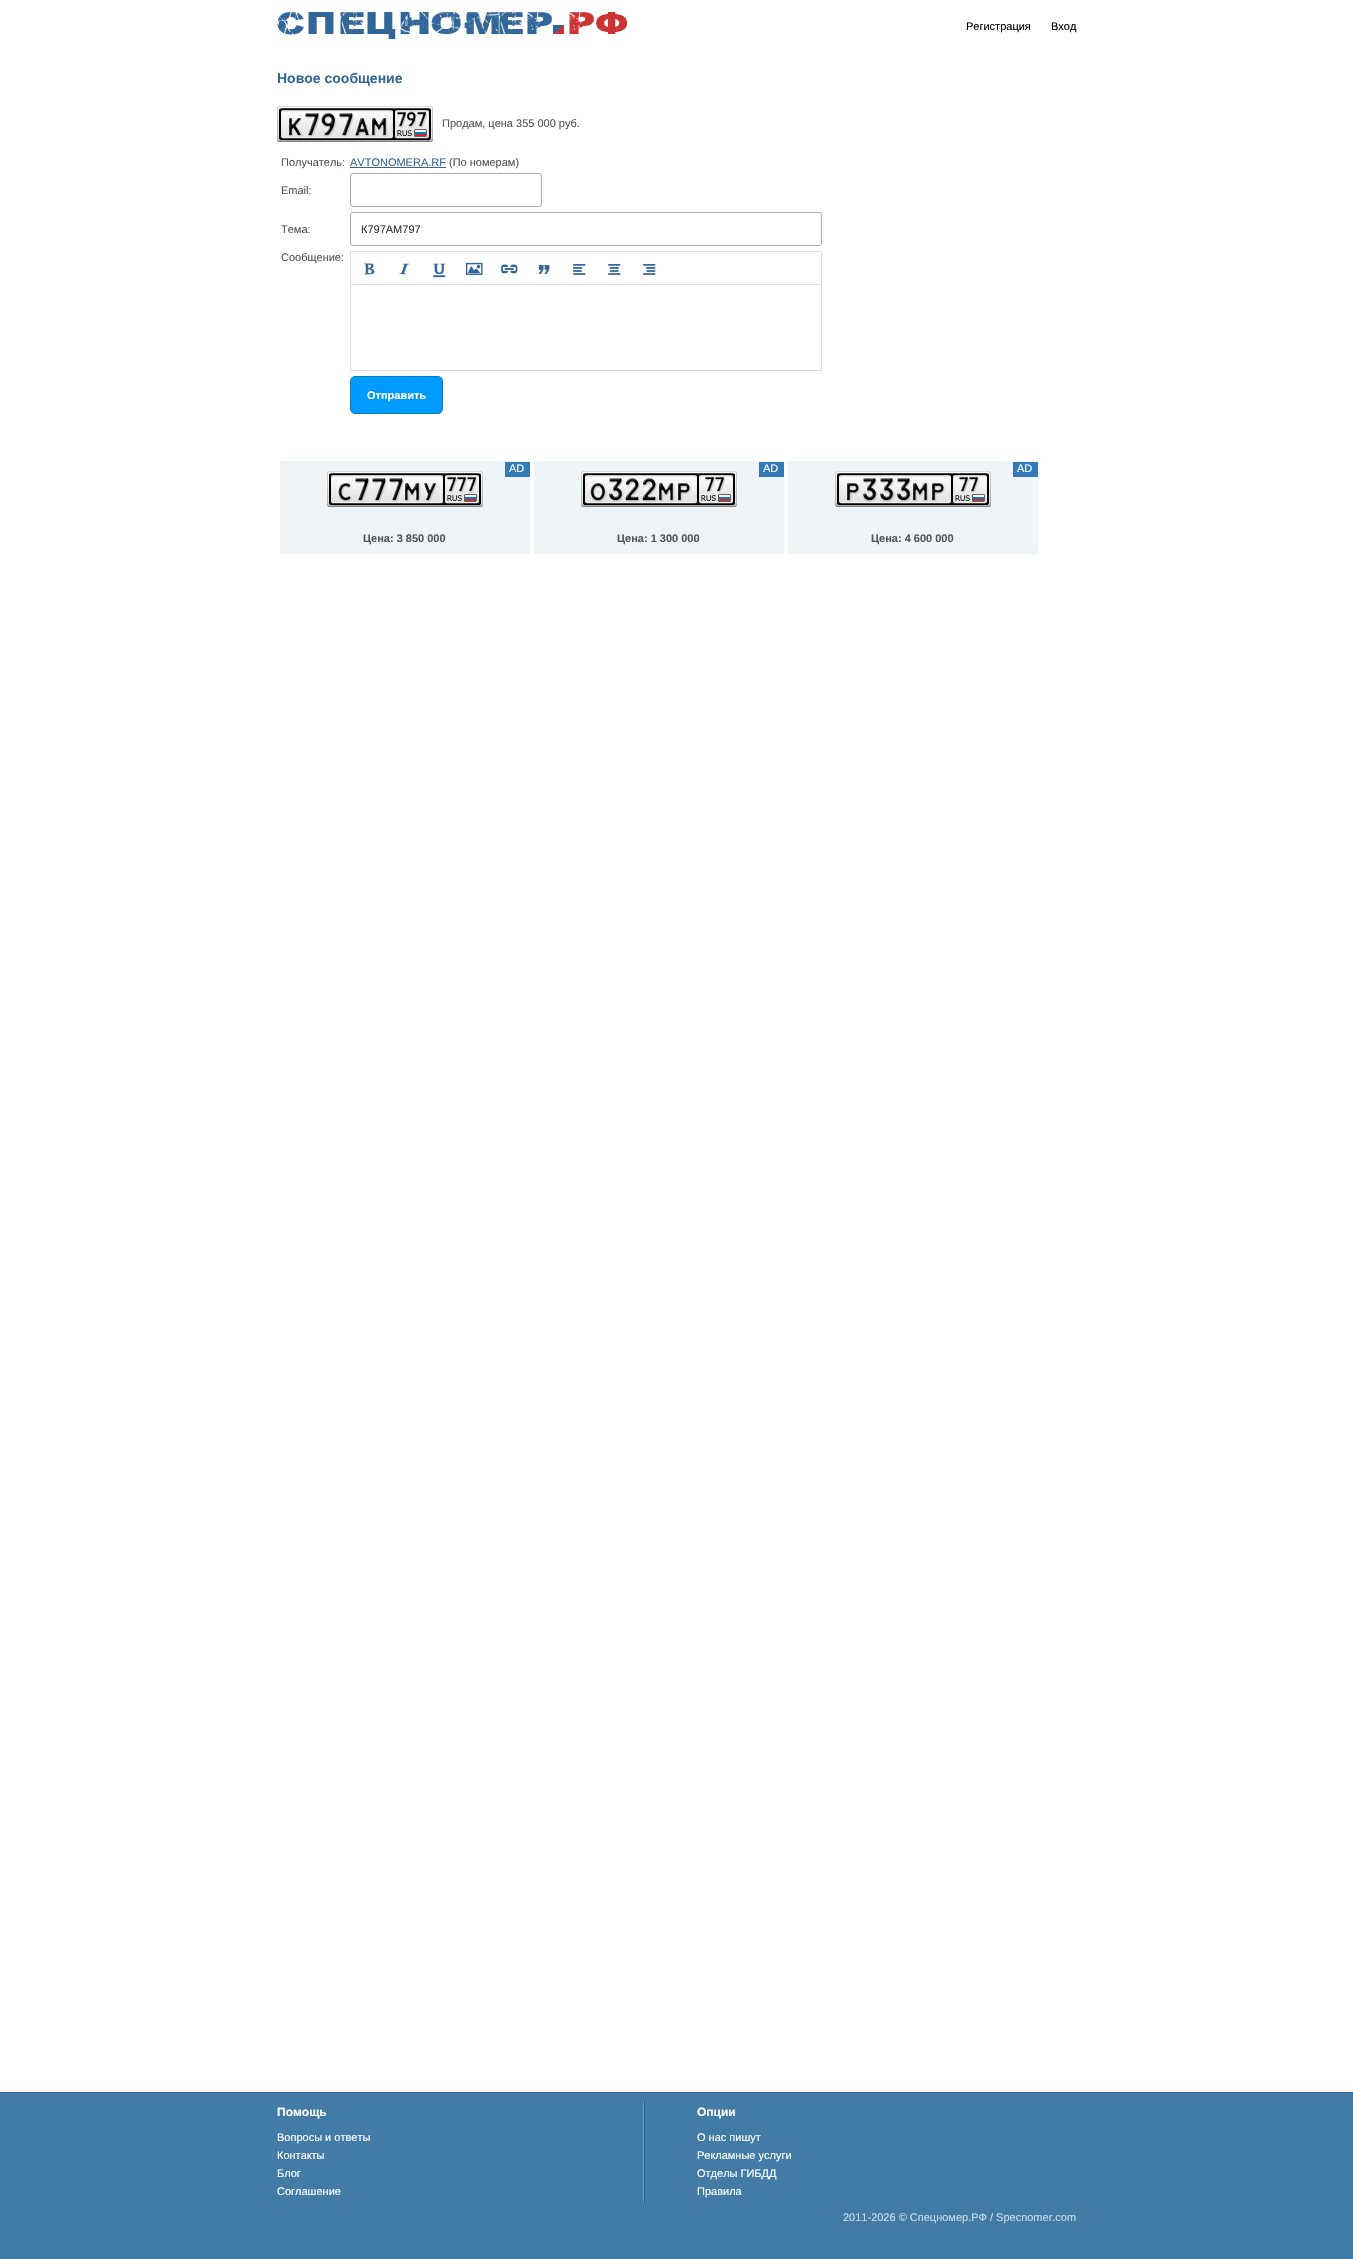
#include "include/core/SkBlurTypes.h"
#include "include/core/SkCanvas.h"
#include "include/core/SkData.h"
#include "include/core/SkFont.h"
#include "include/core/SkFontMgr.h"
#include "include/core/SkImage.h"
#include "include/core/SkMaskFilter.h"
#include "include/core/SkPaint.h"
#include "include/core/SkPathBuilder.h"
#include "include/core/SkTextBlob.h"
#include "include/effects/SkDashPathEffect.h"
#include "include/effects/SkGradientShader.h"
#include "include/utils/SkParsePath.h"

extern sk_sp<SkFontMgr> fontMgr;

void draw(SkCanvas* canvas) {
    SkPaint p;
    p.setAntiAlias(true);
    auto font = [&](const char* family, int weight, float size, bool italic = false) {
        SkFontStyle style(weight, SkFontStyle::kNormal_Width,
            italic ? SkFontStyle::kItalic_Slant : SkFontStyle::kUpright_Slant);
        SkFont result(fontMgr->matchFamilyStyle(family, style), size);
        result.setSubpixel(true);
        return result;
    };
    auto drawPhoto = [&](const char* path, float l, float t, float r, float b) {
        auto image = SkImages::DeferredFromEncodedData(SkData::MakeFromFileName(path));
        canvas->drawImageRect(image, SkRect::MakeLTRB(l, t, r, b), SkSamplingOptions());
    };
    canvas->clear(0xFFFFFFFF);
    drawPhoto("media/1.png", 277, 10, 627, 39);
    auto font1 = font("Liberation Sans", 400, 11);
    p.setColor(0xFF000000);
    canvas->drawString("Регистрация", 966, 30, font1, p);
    canvas->drawString("Вход", 1051, 30, font1, p);
    auto font2 = font("Liberation Sans", 700, 14);
    p.setColor(0xFF336699);
    canvas->drawString("Новое сообщение", 277, 83, font2, p);
    drawPhoto("media/2.png", 277, 106, 433, 142);
    p.setColor(0xFF555555);
    canvas->drawString("Продам, цена 355 000 руб.", 442, 127, font1, p);
    canvas->drawString("Получатель:", 281, 166, font1, p);
    p.setColor(0xFF336699);
    canvas->drawString("AVTONOMERA.RF", 350, 166, font1, p);
    canvas->drawRect(SkRect::MakeLTRB(350, 167, 446, 168), p);
    p.setColor(0xFF555555);
    canvas->drawString("(По номерам)", 449, 166, font1, p);
    canvas->drawString("Email:", 281, 194, font1, p);
    p.setStyle(SkPaint::kStroke_Style);
    p.setStrokeWidth(1);
    p.setColor(0xFFACACAC);
    canvas->drawRoundRect(SkRect::MakeLTRB(350.5f, 173.5f, 541.5f, 206.5f), 2.5f, 2.5f, p);
    p.setStyle(SkPaint::kFill_Style);
    p.setColor(0xFF555555);
    canvas->drawString("Тема:", 281, 233, font1, p);
    p.setStyle(SkPaint::kStroke_Style);
    p.setColor(0xFFACACAC);
    canvas->drawRoundRect(SkRect::MakeLTRB(350.5f, 212.5f, 821.5f, 245.5f), 2.5f, 2.5f, p);
    p.setStyle(SkPaint::kFill_Style);
    p.setColor(0xFF333333);
    canvas->drawString("К797АМ797", 361, 233, font1, p);
    p.setColor(0xFF555555);
    canvas->drawString("Сообщение:", 281, 261, font1, p);
    p.setStyle(SkPaint::kStroke_Style);
    p.setColor(0xFFDDDDDD);
    canvas->drawRect(SkRect::MakeLTRB(350.5f, 251.5f, 821.5f, 370.5f), p);
    p.setStyle(SkPaint::kFill_Style);
    canvas->drawRect(SkRect::MakeLTRB(351, 284, 821, 285), p);
    drawPhoto("media/3.png", 364, 263, 375, 275);
    drawPhoto("media/4.png", 399, 263, 410, 275);
    drawPhoto("media/5.png", 433, 263, 446, 278);
    drawPhoto("media/6.png", 465, 262, 483, 275);
    drawPhoto("media/7.png", 501, 264, 518, 274);
    drawPhoto("media/8.png", 538, 265, 550, 274);
    drawPhoto("media/9.png", 573, 264, 586, 275);
    drawPhoto("media/10.png", 608, 264, 621, 275);
    drawPhoto("media/11.png", 643, 264, 656, 275);
    p.setColor(0xFF009BFF);
    canvas->drawRoundRect(SkRect::MakeLTRB(350.5f, 376.5f, 442.5f, 413.5f), 4.5f, 4.5f, p);
    p.setStyle(SkPaint::kStroke_Style);
    p.setColor(0xFF0C7FB7);
    canvas->drawRoundRect(SkRect::MakeLTRB(350.5f, 376.5f, 442.5f, 413.5f), 4.5f, 4.5f, p);
    auto font3 = font("Liberation Sans", 700, 11);
    p.setStyle(SkPaint::kFill_Style);
    p.setColor(0xFFFFFFFF);
    canvas->drawString("Отправить", 367, 399, font3, p);
    p.setColor(0xFFEEF4F8);
    canvas->drawRect(SkRect::MakeLTRB(280, 461, 530, 554), p);
    p.setColor(0xFF337AB7);
    canvas->drawRect(SkRect::MakeLTRB(505, 462, 530, 477), p);
    p.setColor(0xFFFFFFFF);
    canvas->drawString("AD", 509, 472, font1, p);
    drawPhoto("media/12.png", 327, 471, 483, 507);
    p.setColor(0xFF555555);
    canvas->drawString("Цена: 3 850 000", 363, 542, font3, p);
    p.setColor(0xFFEEF4F8);
    canvas->drawRect(SkRect::MakeLTRB(534, 461, 784, 554), p);
    p.setColor(0xFF337AB7);
    canvas->drawRect(SkRect::MakeLTRB(759, 462, 784, 477), p);
    p.setColor(0xFFFFFFFF);
    canvas->drawString("AD", 763, 472, font1, p);
    drawPhoto("media/13.png", 581, 471, 737, 507);
    p.setColor(0xFF555555);
    canvas->drawString("Цена: 1 300 000", 617, 542, font3, p);
    p.setColor(0xFFEEF4F8);
    canvas->drawRect(SkRect::MakeLTRB(788, 461, 1038, 554), p);
    p.setColor(0xFF337AB7);
    canvas->drawRect(SkRect::MakeLTRB(1013, 462, 1038, 477), p);
    p.setColor(0xFFFFFFFF);
    canvas->drawString("AD", 1017, 472, font1, p);
    drawPhoto("media/14.png", 835, 471, 991, 507);
    p.setColor(0xFF555555);
    canvas->drawString("Цена: 4 600 000", 871, 542, font3, p);
    p.setColor(0xFF427CA6);
    canvas->drawRect(SkRect::MakeLTRB(0, 2093, 1353, 2259), p);
    p.setColor(0xFF336799);
    canvas->drawRect(SkRect::MakeLTRB(0, 2092, 1353, 2093), p);
    auto font4 = font("Liberation Sans", 700, 12);
    p.setColor(0xFFFFFFFF);
    canvas->drawString("Помощь", 277, 2116, font4, p);
    {
        const struct { const char* s; float x, y; } items[] = {
            {"Вопросы и ответы", 277, 2141},
            {"Контакты", 277, 2159},
            {"Блог", 277, 2177},
            {"Соглашение", 277, 2195},
        };
        for (auto [s, x, y] : items) {
            canvas->drawString(s, x, y, font1, p);
        }
    }
    p.setColor(0xFF206683);
    canvas->drawRect(SkRect::MakeLTRB(644, 2102, 645, 2202), p);
    p.setColor(0xFF729BC5);
    canvas->drawRect(SkRect::MakeLTRB(643, 2102, 644, 2202), p);
    p.setColor(0xFFFFFFFF);
    canvas->drawString("Опции", 697, 2116, font4, p);
    {
        const struct { const char* s; float x, y; } items[] = {
            {"О нас пишут", 697, 2141},
            {"Рекламные услуги", 697, 2159},
            {"Отделы ГИБДД", 697, 2177},
            {"Правила", 697, 2195},
        };
        for (auto [s, x, y] : items) {
            canvas->drawString(s, x, y, font1, p);
        }
    }
    p.setColor(0xFFCBDCE8);
    canvas->drawString("2011-2026 © Спецномер.РФ / Specnomer.com", 843, 2221, font1, p);
}
